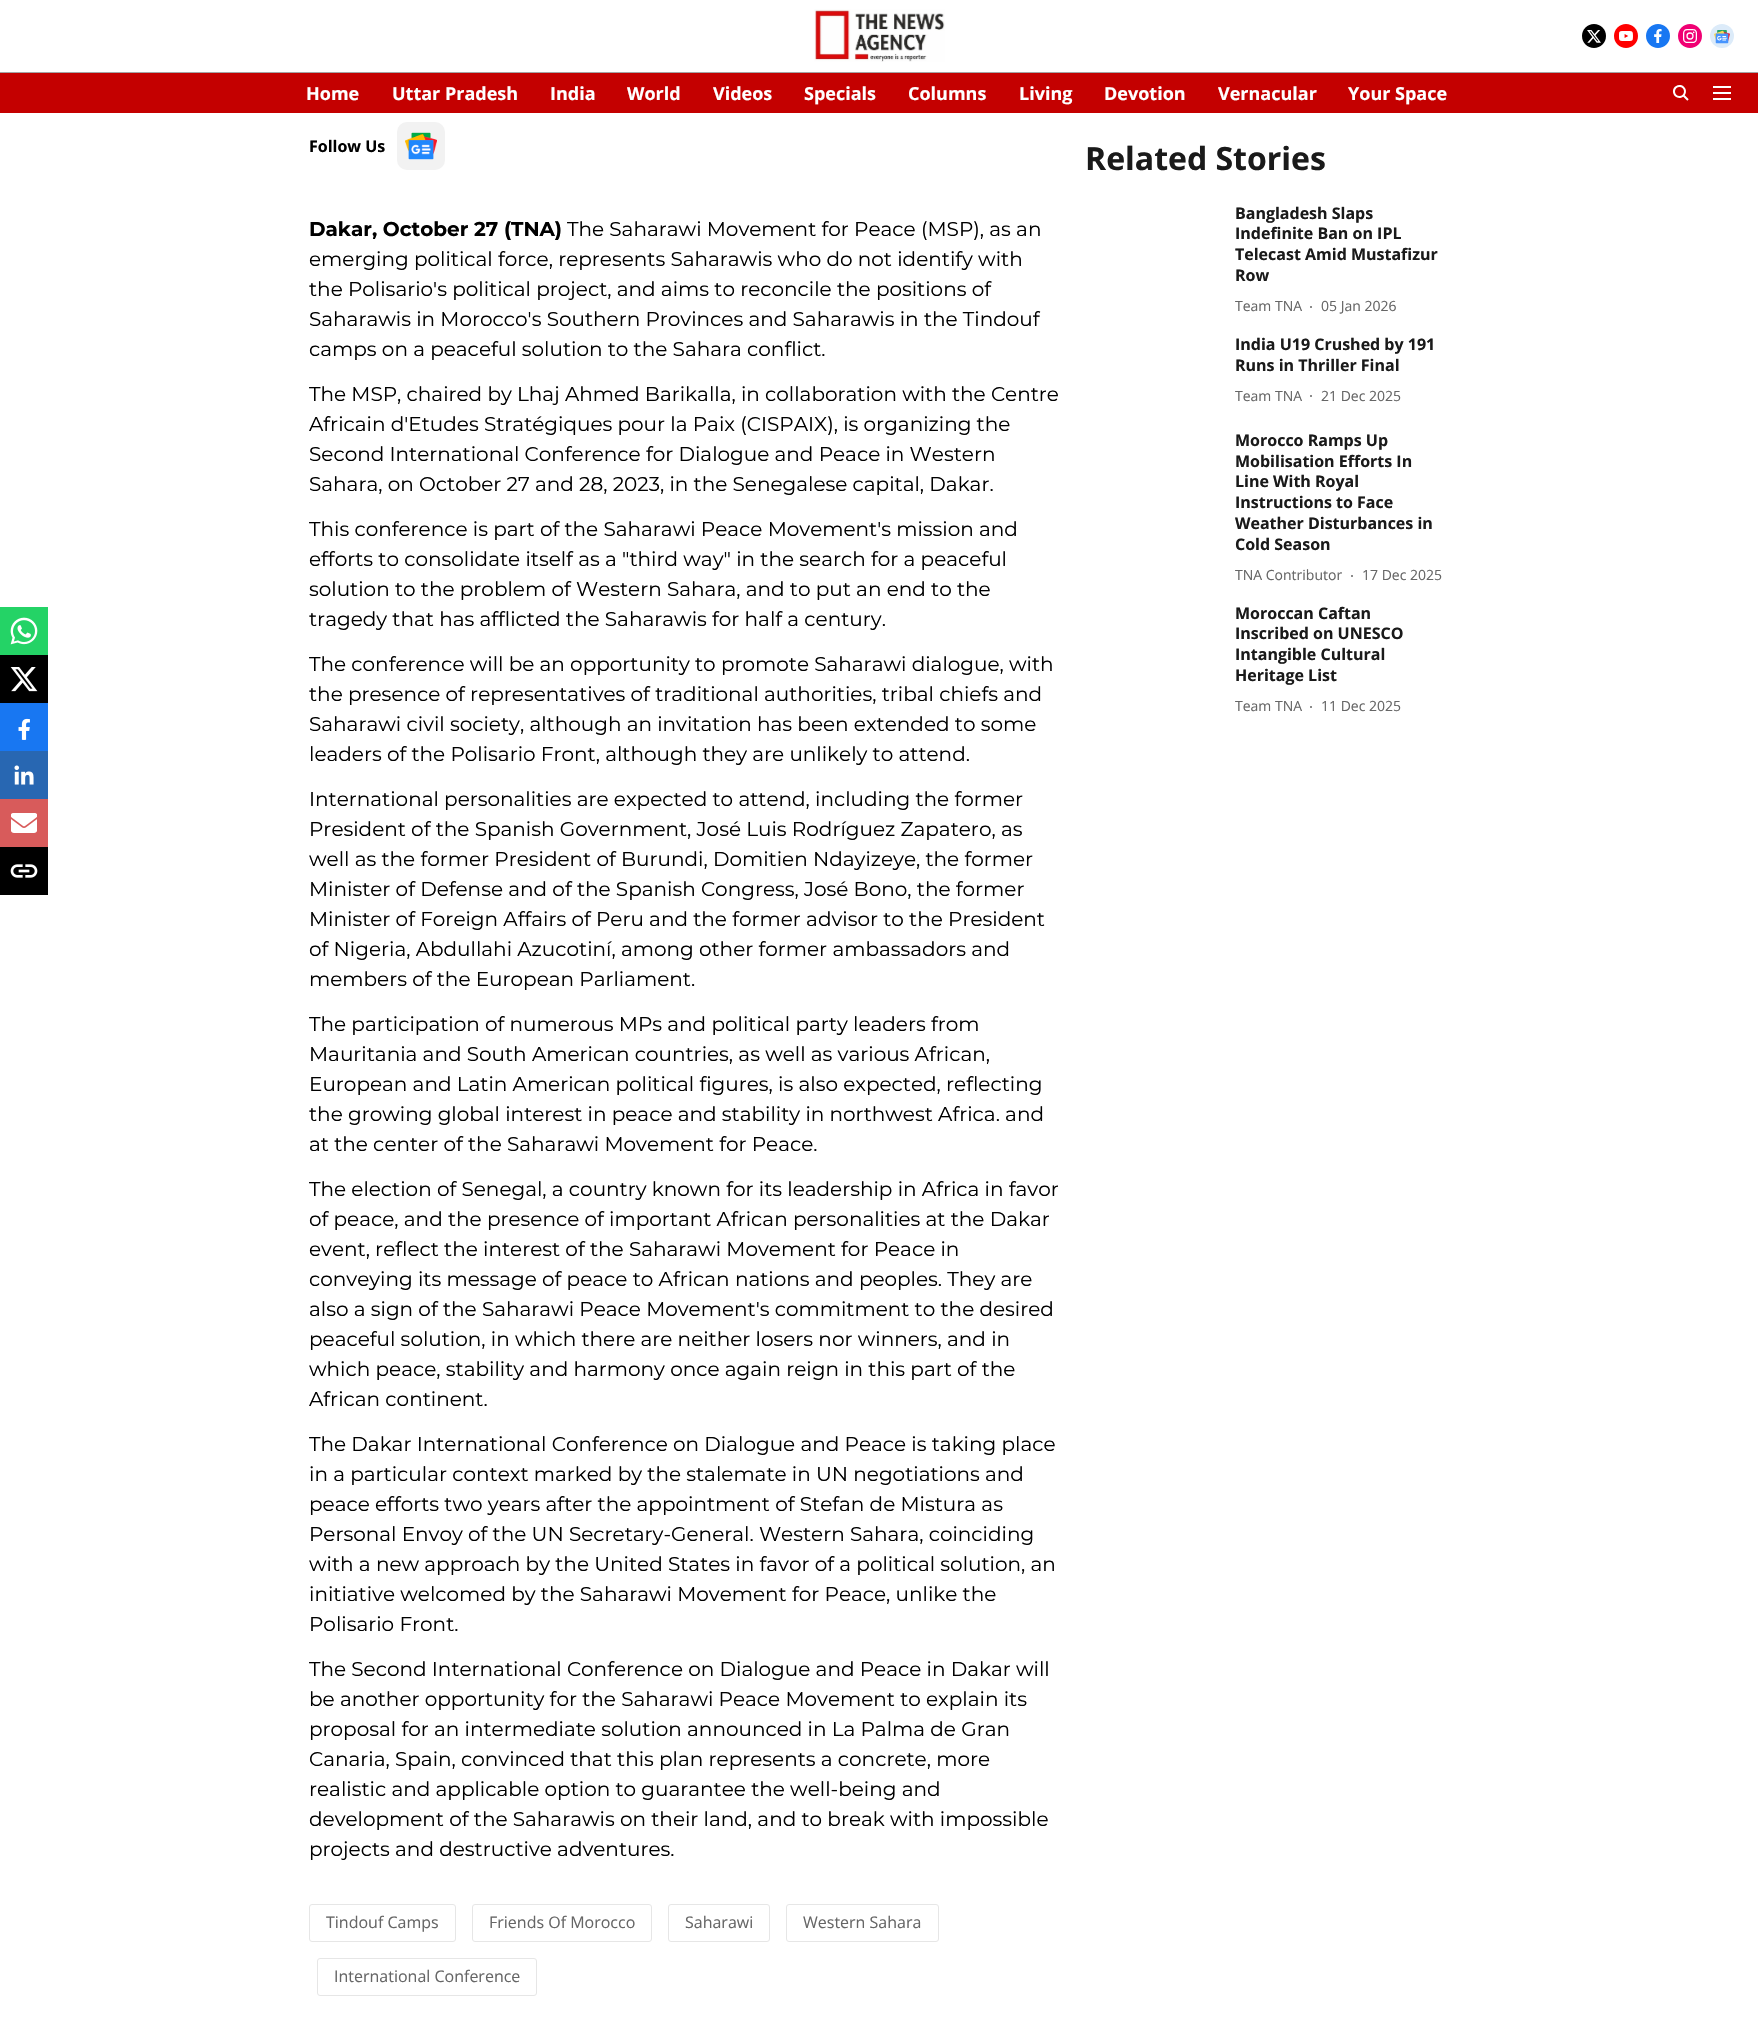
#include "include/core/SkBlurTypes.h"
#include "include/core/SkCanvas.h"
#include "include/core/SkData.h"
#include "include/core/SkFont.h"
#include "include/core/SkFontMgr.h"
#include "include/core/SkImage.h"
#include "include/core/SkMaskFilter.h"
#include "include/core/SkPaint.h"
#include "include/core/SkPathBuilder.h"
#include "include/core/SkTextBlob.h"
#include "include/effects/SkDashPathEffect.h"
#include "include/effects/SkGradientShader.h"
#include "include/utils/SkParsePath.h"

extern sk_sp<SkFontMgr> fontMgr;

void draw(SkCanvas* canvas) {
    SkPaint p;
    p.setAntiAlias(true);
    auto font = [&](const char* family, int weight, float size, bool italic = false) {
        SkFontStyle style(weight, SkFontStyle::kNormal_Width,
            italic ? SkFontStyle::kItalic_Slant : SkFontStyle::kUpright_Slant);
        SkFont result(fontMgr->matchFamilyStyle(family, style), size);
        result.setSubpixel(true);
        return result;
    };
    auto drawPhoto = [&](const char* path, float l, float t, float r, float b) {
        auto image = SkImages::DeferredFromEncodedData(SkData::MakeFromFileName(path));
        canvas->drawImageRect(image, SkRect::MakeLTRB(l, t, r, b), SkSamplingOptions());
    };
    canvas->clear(0xFFFFFFFF);
    p.setColor(0xFFA4A4A4);
    canvas->drawRect(SkRect::MakeLTRB(0, 72, 1758, 73), p);
    drawPhoto("media/1.png", 814, 9, 945, 62);
    drawPhoto("media/2.png", 1582, 24, 1606, 48);
    drawPhoto("media/3.png", 1614, 24, 1638, 48);
    drawPhoto("media/4.png", 1646, 24, 1670, 48);
    drawPhoto("media/5.png", 1678, 24, 1702, 48);
    drawPhoto("media/6.png", 1710, 24, 1734, 48);
    p.setColor(0xFFC40000);
    canvas->drawRect(SkRect::MakeLTRB(0, 73, 1758, 113), p);
    auto font1 = font("Open Sans", 700, 18);
    p.setColor(0xFFFFFFFF);
    {
        const struct { const char* s; float x, y; } items[] = {
            {"Home", 306, 100},
            {"Uttar Pradesh", 392, 100},
            {"India", 550, 100},
            {"World", 627, 100},
            {"Videos", 713, 100},
            {"Specials", 804, 100},
            {"Columns", 908, 100},
            {"Living", 1019, 100},
            {"Devotion", 1104, 100},
            {"Vernacular", 1218, 100},
            {"Your Space", 1348, 100},
        };
        for (auto [s, x, y] : items) {
            canvas->drawString(s, x, y, font1, p);
        }
    }
    drawPhoto("media/7.png", 1672, 85, 1689, 101);
    drawPhoto("media/8.png", 1713, 86, 1731, 100);
    auto font2 = font("Open Sans", 700, 16);
    p.setColor(0xFF000000);
    canvas->drawString("Follow Us", 309, 152, font2, p);
    p.setColor(0xFFF2F2F2);
    canvas->drawRoundRect(SkRect::MakeLTRB(397, 122, 445, 170), 10, 10, p);
    drawPhoto("media/9.png", 405, 132, 437, 160);
    p.setColor(0xFF24D366);
    canvas->drawRect(SkRect::MakeLTRB(0, 607, 48, 655), p);
    drawPhoto("media/10.png", 10, 617, 38, 645);
    p.setColor(0xFF000000);
    canvas->drawRect(SkRect::MakeLTRB(0, 655, 48, 703), p);
    drawPhoto("media/11.png", 10, 667, 38, 692);
    p.setColor(0xFF1877F2);
    canvas->drawRect(SkRect::MakeLTRB(0, 703, 48, 751), p);
    drawPhoto("media/12.png", 18, 718, 30, 740);
    p.setColor(0xFF2867B2);
    canvas->drawRect(SkRect::MakeLTRB(0, 751, 48, 799), p);
    drawPhoto("media/13.png", 14, 765, 34, 785);
    p.setColor(0xFFD85B5B);
    canvas->drawRect(SkRect::MakeLTRB(0, 799, 48, 847), p);
    drawPhoto("media/14.png", 11, 813, 37, 833);
    p.setColor(0xFF000000);
    canvas->drawRect(SkRect::MakeLTRB(0, 847, 48, 895), p);
    drawPhoto("media/15.png", 10, 864, 38, 878);
    auto font3 = font("Montserrat", 100, 20);
    canvas->drawString("Dakar, October 27 (TNA)", 309, 236, font3, p);
    auto font4 = font("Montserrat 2", 100, 20);
    {
        const struct { const char* s; float x, y; } items[] = {
            {"The Saharawi Movement for Peace (MSP), as an", 567, 236},
            {"emerging political force, represents Saharawis who do not identify with", 309, 266},
            {"the Polisario's political project, and aims to reconcile the positions of", 309, 296},
            {"Saharawis in Morocco's Southern Provinces and Saharawis in the Tindouf", 309, 326},
            {"camps on a peaceful solution to the Sahara conflict.", 309, 356},
            {"The MSP, chaired by Lhaj Ahmed Barikalla, in collaboration with the Centre", 309, 401},
            {"Africain d'Etudes Stratégiques pour la Paix (CISPAIX), is organizing the", 309, 431},
            {"Second International Conference for Dialogue and Peace in Western", 309, 461},
            {"Sahara, on October 27 and 28, 2023, in the Senegalese capital, Dakar.", 309, 491},
            {"This conference is part of the Saharawi Peace Movement's mission and", 309, 536},
            {"efforts to consolidate itself as a \"third way\" in the search for a peaceful", 309, 566},
            {"solution to the problem of Western Sahara, and to put an end to the", 309, 596},
            {"tragedy that has afflicted the Saharawis for half a century.", 309, 626},
            {"The conference will be an opportunity to promote Saharawi dialogue, with", 309, 671},
            {"the presence of representatives of traditional authorities, tribal chiefs and", 309, 701},
            {"Saharawi civil society, although an invitation has been extended to some", 309, 731},
            {"leaders of the Polisario Front, although they are unlikely to attend.", 309, 761},
            {"International personalities are expected to attend, including the former", 309, 806},
            {"President of the Spanish Government, José Luis Rodríguez Zapatero, as", 309, 836},
            {"well as the former President of Burundi, Domitien Ndayizeye, the former", 309, 866},
            {"Minister of Defense and of the Spanish Congress, José Bono, the former", 309, 896},
            {"Minister of Foreign Affairs of Peru and the former advisor to the President", 309, 926},
            {"of Nigeria, Abdullahi Azucotiní, among other former ambassadors and", 309, 956},
            {"members of the European Parliament.", 309, 986},
            {"The participation of numerous MPs and political party leaders from", 309, 1031},
            {"Mauritania and South American countries, as well as various African,", 309, 1061},
            {"European and Latin American political figures, is also expected, reflecting", 309, 1091},
            {"the growing global interest in peace and stability in northwest Africa. and", 309, 1121},
            {"at the center of the Saharawi Movement for Peace.", 309, 1151},
            {"The election of Senegal, a country known for its leadership in Africa in favor", 309, 1196},
            {"of peace, and the presence of important African personalities at the Dakar", 309, 1226},
            {"event, reflect the interest of the Saharawi Movement for Peace in", 309, 1256},
            {"conveying its message of peace to African nations and peoples. They are", 309, 1286},
            {"also a sign of the Saharawi Peace Movement's commitment to the desired", 309, 1316},
            {"peaceful solution, in which there are neither losers nor winners, and in", 309, 1346},
            {"which peace, stability and harmony once again reign in this part of the", 309, 1376},
            {"African continent.", 309, 1406},
            {"The Dakar International Conference on Dialogue and Peace is taking place", 309, 1451},
            {"in a particular context marked by the stalemate in UN negotiations and", 309, 1481},
            {"peace efforts two years after the appointment of Stefan de Mistura as", 309, 1511},
            {"Personal Envoy of the UN Secretary-General. Western Sahara, coinciding", 309, 1541},
            {"with a new approach by the United States in favor of a political solution, an", 309, 1571},
            {"initiative welcomed by the Saharawi Movement for Peace, unlike the", 309, 1601},
            {"Polisario Front.", 309, 1631},
            {"The Second International Conference on Dialogue and Peace in Dakar will", 309, 1676},
            {"be another opportunity for the Saharawi Peace Movement to explain its", 309, 1706},
            {"proposal for an intermediate solution announced in La Palma de Gran", 309, 1736},
            {"Canaria, Spain, convinced that this plan represents a concrete, more", 309, 1766},
            {"realistic and applicable option to guarantee the well-being and", 309, 1796},
            {"development of the Saharawis on their land, and to break with impossible", 309, 1826},
            {"projects and destructive adventures.", 309, 1856},
        };
        for (auto [s, x, y] : items) {
            canvas->drawString(s, x, y, font4, p);
        }
    }
    p.setStyle(SkPaint::kStroke_Style);
    p.setStrokeWidth(1);
    p.setColor(0xFFE6E6E6);
    canvas->drawRoundRect(SkRect::MakeLTRB(309.5f, 1904.5f, 455.5f, 1941.5f), 2.5f, 2.5f, p);
    auto font5 = font("Open Sans", 400, 16);
    p.setStyle(SkPaint::kFill_Style);
    p.setColor(0xFF666666);
    canvas->drawString("Tindouf Camps", 326, 1928, font5, p);
    p.setStyle(SkPaint::kStroke_Style);
    p.setColor(0xFFE6E6E6);
    canvas->drawRoundRect(SkRect::MakeLTRB(472.5f, 1904.5f, 651.5f, 1941.5f), 2.5f, 2.5f, p);
    p.setStyle(SkPaint::kFill_Style);
    p.setColor(0xFF666666);
    canvas->drawString("Friends Of Morocco", 489, 1928, font5, p);
    p.setStyle(SkPaint::kStroke_Style);
    p.setColor(0xFFE6E6E6);
    canvas->drawRoundRect(SkRect::MakeLTRB(668.5f, 1904.5f, 769.5f, 1941.5f), 2.5f, 2.5f, p);
    p.setStyle(SkPaint::kFill_Style);
    p.setColor(0xFF666666);
    canvas->drawString("Saharawi", 685, 1928, font5, p);
    p.setStyle(SkPaint::kStroke_Style);
    p.setColor(0xFFE6E6E6);
    canvas->drawRoundRect(SkRect::MakeLTRB(786.5f, 1904.5f, 938.5f, 1941.5f), 2.5f, 2.5f, p);
    p.setStyle(SkPaint::kFill_Style);
    p.setColor(0xFF666666);
    canvas->drawString("Western Sahara", 803, 1928, font5, p);
    p.setStyle(SkPaint::kStroke_Style);
    p.setColor(0xFFE6E6E6);
    canvas->drawRoundRect(SkRect::MakeLTRB(317.5f, 1958.5f, 536.5f, 1995.5f), 2.5f, 2.5f, p);
    p.setStyle(SkPaint::kFill_Style);
    p.setColor(0xFF666666);
    canvas->drawString("International Conference", 334, 1982, font5, p);
    auto font6 = font("Open Sans", 700, 32);
    p.setColor(0xFF1A1A1A);
    canvas->drawString("Related Stories", 1085, 170, font6, p);
    {
        const struct { const char* s; float x, y; } items[] = {
            {"Bangladesh Slaps", 1235, 219},
            {"Indefinite Ban on IPL", 1235, 239},
            {"Telecast Amid Mustafizur", 1235, 260},
            {"Row", 1235, 281},
        };
        for (auto [s, x, y] : items) {
            canvas->drawString(s, x, y, font2, p);
        }
    }
    auto font7 = font("Open Sans", 400, 14);
    p.setColor(0xFF666666);
    canvas->drawString("Team TNA", 1235, 311, font7, p);
    canvas->drawCircle(1311, 307, 1, p);
    canvas->drawString("05 Jan 2026", 1321, 311, font7, p);
    p.setColor(0xFF1A1A1A);
    canvas->drawString("India U19 Crushed by 191", 1235, 350, font2, p);
    canvas->drawString("Runs in Thriller Final", 1235, 371, font2, p);
    p.setColor(0xFF666666);
    canvas->drawString("Team TNA", 1235, 401, font7, p);
    canvas->drawCircle(1311, 396, 1, p);
    canvas->drawString("21 Dec 2025", 1321, 401, font7, p);
    p.setColor(0xFF1A1A1A);
    {
        const struct { const char* s; float x, y; } items[] = {
            {"Morocco Ramps Up", 1235, 446},
            {"Mobilisation Efforts In", 1235, 467},
            {"Line With Royal", 1235, 487},
            {"Instructions to Face", 1235, 508},
            {"Weather Disturbances in", 1235, 529},
            {"Cold Season", 1235, 550},
        };
        for (auto [s, x, y] : items) {
            canvas->drawString(s, x, y, font2, p);
        }
    }
    p.setColor(0xFF666666);
    canvas->drawString("TNA Contributor", 1235, 580, font7, p);
    canvas->drawCircle(1352, 576, 1, p);
    canvas->drawString("17 Dec 2025", 1362, 580, font7, p);
    p.setColor(0xFF1A1A1A);
    {
        const struct { const char* s; float x, y; } items[] = {
            {"Moroccan Caftan", 1235, 619},
            {"Inscribed on UNESCO", 1235, 639},
            {"Intangible Cultural", 1235, 660},
            {"Heritage List", 1235, 681},
        };
        for (auto [s, x, y] : items) {
            canvas->drawString(s, x, y, font2, p);
        }
    }
    p.setColor(0xFF666666);
    canvas->drawString("Team TNA", 1235, 711, font7, p);
    canvas->drawCircle(1311, 707, 1, p);
    canvas->drawString("11 Dec 2025", 1321, 711, font7, p);
}
